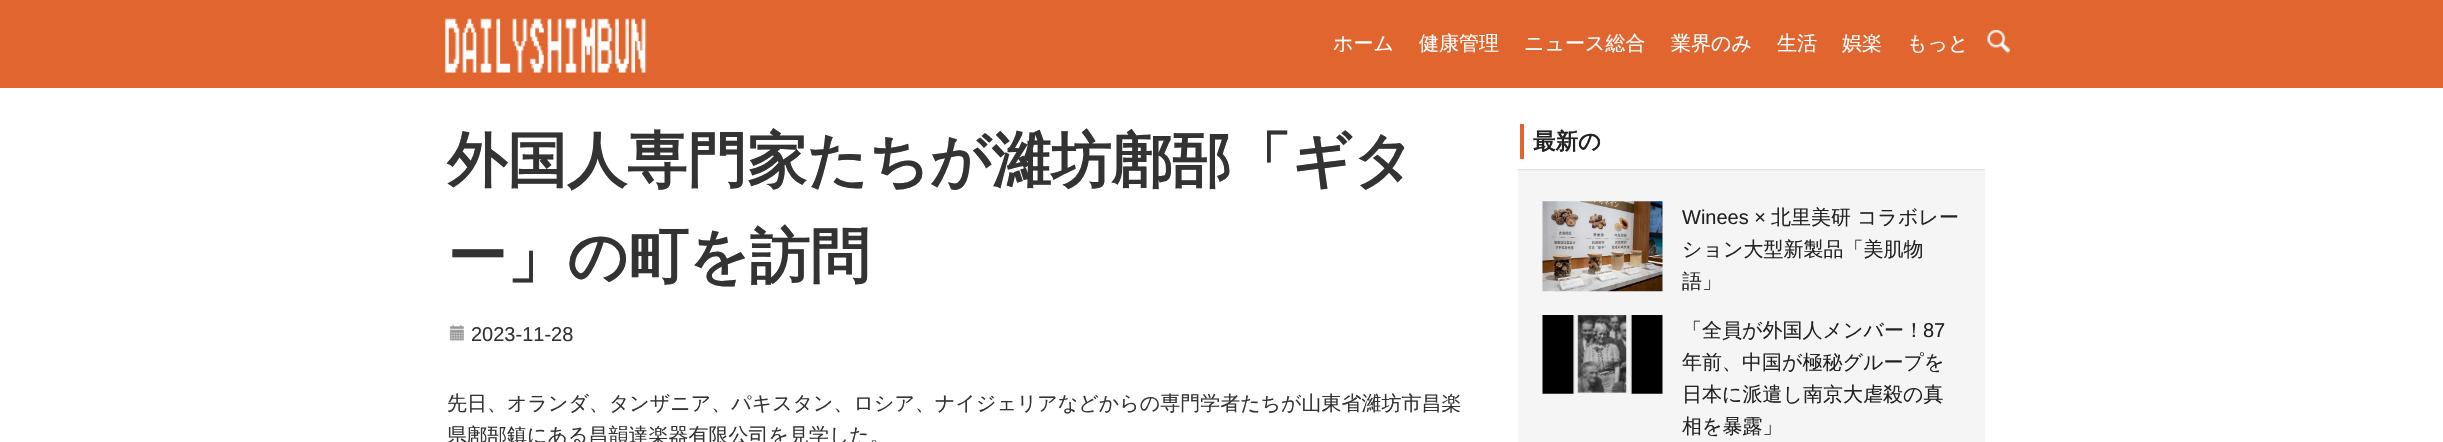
#include "include/core/SkBlurTypes.h"
#include "include/core/SkCanvas.h"
#include "include/core/SkData.h"
#include "include/core/SkFont.h"
#include "include/core/SkFontMgr.h"
#include "include/core/SkImage.h"
#include "include/core/SkMaskFilter.h"
#include "include/core/SkPaint.h"
#include "include/core/SkPathBuilder.h"
#include "include/core/SkTextBlob.h"
#include "include/effects/SkDashPathEffect.h"
#include "include/effects/SkGradientShader.h"
#include "include/utils/SkParsePath.h"

extern sk_sp<SkFontMgr> fontMgr;

void draw(SkCanvas* canvas) {
    SkPaint p;
    p.setAntiAlias(true);
    auto font = [&](const char* family, int weight, float size, bool italic = false) {
        SkFontStyle style(weight, SkFontStyle::kNormal_Width,
            italic ? SkFontStyle::kItalic_Slant : SkFontStyle::kUpright_Slant);
        SkFont result(fontMgr->matchFamilyStyle(family, style), size);
        result.setSubpixel(true);
        return result;
    };
    auto drawPhoto = [&](const char* path, float l, float t, float r, float b) {
        auto image = SkImages::DeferredFromEncodedData(SkData::MakeFromFileName(path));
        canvas->drawImageRect(image, SkRect::MakeLTRB(l, t, r, b), SkSamplingOptions());
    };
    canvas->clear(0xFFFFFFFF);
    p.setColor(0xFFE1652F);
    canvas->drawRect(SkRect::MakeLTRB(0, 0, 2443, 88), p);
    drawPhoto("media/1.png", 444, 18, 647, 73);
    auto font1 = font("WenQuanYi Zen Hei", 500, 20);
    p.setColor(0xFFFFFFFF);
    {
        const struct { const char* s; float x, y; } items[] = {
            {"ホーム", 1333, 50},
            {"健康管理", 1419, 50},
            {"ニュース総合", 1524, 50},
            {"業界のみ", 1671, 50},
            {"生活", 1777, 50},
            {"娯楽", 1842, 50},
            {"もっと", 1907, 50},
        };
        for (auto [s, x, y] : items) {
            canvas->drawString(s, x, y, font1, p);
        }
    }
    drawPhoto("media/2.png", 1987, 29, 2010, 53);
    auto font2 = font("WenQuanYi Zen Hei", 700, 60);
    p.setColor(0xFF333333);
    canvas->drawString("外国人専門家たちが濰坊鄌郚「ギタ", 447, 181, font2, p);
    canvas->drawString("ー」の町を訪問", 447, 277, font2, p);
    drawPhoto("media/3.png", 449, 324, 464, 342);
    auto font3 = font("Liberation Sans", 400, 20);
    canvas->drawString("2023-11-28", 471, 341, font3, p);
    canvas->drawString("先日、オランダ、タンザニア、パキスタン、ロシア、ナイジェリアなどからの専門学者たちが山東省濰坊市昌楽", 447, 410, font1, p);
    canvas->drawString("県鄌郚鎮にある昌韻達楽器有限公司を見学した。", 447, 442, font1, p);
    p.setColor(0xFFDEDEDE);
    canvas->drawRect(SkRect::MakeLTRB(1518, 169, 1985, 170), p);
    p.setColor(0xFFE1652F);
    canvas->drawRect(SkRect::MakeLTRB(1520, 124, 1524, 159), p);
    auto font4 = font("WenQuanYi Zen Hei", 700, 22.5f);
    p.setColor(0xFF222222);
    canvas->drawString("最新の", 1533, 149, font4, p);
    p.setColor(0xFFF5F5F5);
    canvas->drawRect(SkRect::MakeLTRB(1518, 170, 1985, 442), p);
    drawPhoto("media/4.png", 1542, 201, 1663, 292);
    p.setColor(0xFF222222);
    canvas->drawString("Winees ×", 1682, 224, font3, p);
    {
        const struct { const char* s; float x, y; } items[] = {
            {"北里美研", 1771, 224},
            {"コラボレー", 1857, 224},
            {"ション大型新製品「美肌物", 1682, 256},
            {"語」", 1682, 288},
        };
        for (auto [s, x, y] : items) {
            canvas->drawString(s, x, y, font1, p);
        }
    }
    drawPhoto("media/5.png", 1542, 315, 1663, 394);
    canvas->drawString("「全員が外国人メンバー！", 1682, 337, font1, p);
    canvas->drawString("87", 1923, 337, font3, p);
    {
        const struct { const char* s; float x, y; } items[] = {
            {"年前、中国が極秘グループを", 1682, 369},
            {"日本に派遣し南京大虐殺の真", 1682, 401},
            {"相を暴露」", 1682, 433},
        };
        for (auto [s, x, y] : items) {
            canvas->drawString(s, x, y, font1, p);
        }
    }
}
